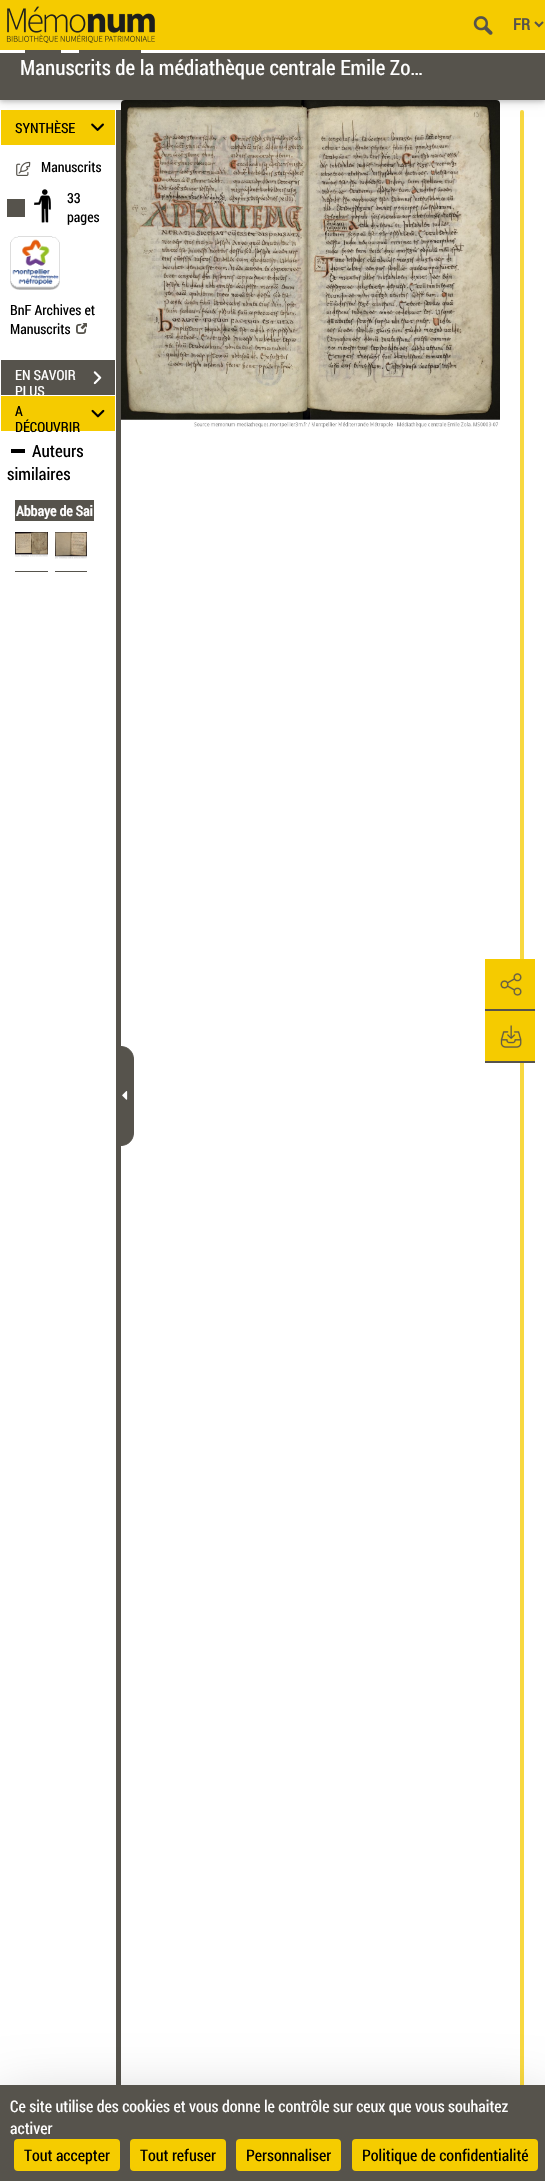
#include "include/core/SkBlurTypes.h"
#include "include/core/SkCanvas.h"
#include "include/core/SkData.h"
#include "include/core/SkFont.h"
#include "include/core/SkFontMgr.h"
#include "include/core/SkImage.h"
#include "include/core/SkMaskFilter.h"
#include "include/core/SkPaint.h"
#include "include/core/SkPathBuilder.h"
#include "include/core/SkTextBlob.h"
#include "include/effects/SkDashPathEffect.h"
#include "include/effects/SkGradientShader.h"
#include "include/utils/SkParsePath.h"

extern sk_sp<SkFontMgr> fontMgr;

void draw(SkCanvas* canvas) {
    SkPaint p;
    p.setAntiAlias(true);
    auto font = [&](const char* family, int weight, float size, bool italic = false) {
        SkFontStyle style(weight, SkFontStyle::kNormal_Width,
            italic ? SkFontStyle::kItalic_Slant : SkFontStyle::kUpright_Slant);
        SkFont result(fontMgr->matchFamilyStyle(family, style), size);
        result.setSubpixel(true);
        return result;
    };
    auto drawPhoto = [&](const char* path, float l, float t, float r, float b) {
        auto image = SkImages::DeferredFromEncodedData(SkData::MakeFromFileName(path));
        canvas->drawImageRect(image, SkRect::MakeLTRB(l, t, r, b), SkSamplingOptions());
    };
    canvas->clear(0xFFFFFFFF);
    drawPhoto("media/13.png", 121, 100, 500, 428);
    p.setColor(0xFFF8D840);
    canvas->drawRoundRect(SkRect::MakeLTRB(520, 110, 524, 2161), 2, 2, p);
    p.setColor(0x1F000000);
    p.setMaskFilter(SkMaskFilter::MakeBlur(kNormal_SkBlurStyle, 5));
    canvas->drawRect(SkRect::MakeLTRB(0, 52, 545, 102), p);
    p.setMaskFilter(nullptr);
    p.setColor(0x29000000);
    p.setMaskFilter(SkMaskFilter::MakeBlur(kNormal_SkBlurStyle, 2));
    canvas->drawRect(SkRect::MakeLTRB(0, 52, 545, 102), p);
    p.setMaskFilter(nullptr);
    p.setColor(0xFFF5CB00);
    canvas->drawRect(SkRect::MakeLTRB(0, 0, 545, 50), p);
    drawPhoto("media/1.png", 6, 6, 155, 43);
    drawPhoto("media/2.png", 473, 16, 493, 35);
    p.setStyle(SkPaint::kStroke_Style);
    p.setStrokeWidth(2);
    p.setColor(0xFF56534C);
    canvas->drawPath(SkPathBuilder().moveTo(535, 22).lineTo(539, 26).lineTo(543, 22).detach(), p);
    auto font1 = font("Roboto Condensed", 700, 16);
    p.setStyle(SkPaint::kFill_Style);
    canvas->drawString("FR", 513, 30, font1, p);
    {
        const struct { float l, t, r, b; SkColor color; } items[] = {
            {0, 53, 545, 100, 0xFF56534C},
            {0, 50, 545, 53, 0xFFFFFFFF},
            {25, 50, 61, 53, 0xFF56534C},
            {79, 50, 141, 53, 0xFF56534C},
        };
        for (auto [l, t, r, b, color] : items) {
            p.setColor(color);
            canvas->drawRect(SkRect::MakeLTRB(l, t, r, b), p);
        }
    }
    auto font2 = font("Roboto Condensed", 400, 21);
    p.setColor(0xFFFFFFFF);
    canvas->drawString("Manuscrits de la médiathèque centrale Emile Zo…", 20, 75, font2, p);
    p.setColor(0xFF56534C);
    canvas->drawRect(SkRect::MakeLTRB(116, 110, 121, 2085), p);
    p.setColor(0xFFF5CB00);
    canvas->drawRect(SkRect::MakeLTRB(1, 110, 115, 145), p);
    auto font3 = font("Roboto Condensed", 400, 14);
    p.setColor(0xFF000000);
    canvas->drawString("SYNTHÈSE", 15, 133, font3, p);
    drawPhoto("media/3.png", 91, 123, 104, 131);
    drawPhoto("media/4.png", 16, 161, 31, 176);
    canvas->drawString("Manuscrits", 41, 172, font3, p);
    p.setColor(0xFF56534C);
    canvas->drawRect(SkRect::MakeLTRB(7, 199, 25, 217), p);
    drawPhoto("media/5.png", 34, 189, 51, 223);
    p.setColor(0xFF000000);
    canvas->drawString("33", 67, 203, font3, p);
    canvas->drawString("pages", 67, 222, font3, p);
    drawPhoto("media/6.png", 10, 236, 60, 290);
    canvas->drawString("BnF Archives et", 10, 315, font3, p);
    canvas->drawString("Manuscrits", 10, 334, font3, p);
    drawPhoto("media/7.png", 76, 323, 87, 334);
    p.setColor(0xFF56534C);
    canvas->drawRect(SkRect::MakeLTRB(1, 360, 115, 395), p);
    p.setColor(0xFFFFFFFF);
    canvas->drawString("EN SAVOIR", 15, 380, font3, p);
    drawPhoto("media/8.png", 93, 371, 102, 385);
    canvas->drawString("PLUS", 15, 396, font3, p);
    p.setColor(0xFFF5CB00);
    canvas->drawRect(SkRect::MakeLTRB(1, 396, 115, 431), p);
    p.setColor(0xFF000000);
    canvas->drawString("A", 15, 416, font3, p);
    drawPhoto("media/9.png", 91, 409, 105, 418);
    canvas->drawString("DÉCOUVRIR", 15, 432, font3, p);
    p.setColor(0xFFFFFFFF);
    canvas->drawRect(SkRect::MakeLTRB(33, 432, 50, 433), p);
    auto font4 = font("Roboto Condensed", 400, 17);
    p.setColor(0xFF000000);
    canvas->drawString("Auteurs", 32, 457, font4, p);
    canvas->drawRect(SkRect::MakeLTRB(11, 449, 25, 453), p);
    canvas->drawString("similaires", 7, 480, font4, p);
    p.setColor(0xFF56534C);
    canvas->drawRect(SkRect::MakeLTRB(15, 500, 94, 521), p);
    auto font5 = font("Roboto Condensed", 700, 14);
    p.setColor(0xFFFFFFFF);
    canvas->drawString("Abbaye de Sai", 16, 516, font5, p);
    drawPhoto("media/10.png", 15, 532, 48, 557);
    p.setColor(0xFF56534C);
    canvas->drawRect(SkRect::MakeLTRB(15, 571, 48, 572), p);
    drawPhoto("media/11.png", 55, 532, 87, 559);
    canvas->drawRect(SkRect::MakeLTRB(55, 571, 87, 572), p);
    canvas->drawPath(SkPathBuilder().moveTo(121.5f, 1046.5f).lineTo(121, 1046.5f).cubicTo(128, 1046.5f, 133.5f, 1052, 133.5f, 1059).lineTo(133.5f, 1133).cubicTo(133.5f, 1140, 128, 1145.5f, 121, 1145.5f).lineTo(121.5f, 1145.5f).close().detach(), p);
    p.setStyle(SkPaint::kStroke_Style);
    p.setStrokeWidth(1);
    canvas->drawPath(SkPathBuilder().moveTo(121.5f, 1046.5f).lineTo(121, 1046.5f).cubicTo(128, 1046.5f, 133.5f, 1052, 133.5f, 1059).lineTo(133.5f, 1133).cubicTo(133.5f, 1140, 128, 1145.5f, 121, 1145.5f).lineTo(121.5f, 1145.5f).close().detach(), p);
    drawPhoto("media/12.png", 122, 1091, 128, 1100);
    p.setStyle(SkPaint::kFill_Style);
    p.setColor(0xFFF5CB00);
    canvas->drawRect(SkRect::MakeLTRB(485, 959, 535, 1009), p);
    drawPhoto("media/14.png", 500, 973, 522, 996);
    p.setColor(0xFF56534C);
    canvas->drawRect(SkRect::MakeLTRB(485, 1009, 535, 1011), p);
    p.setColor(0xFFF5CB00);
    canvas->drawRect(SkRect::MakeLTRB(485, 1011, 535, 1061), p);
    drawPhoto("media/15.png", 500, 1025, 522, 1048);
    p.setColor(0xFF56534C);
    canvas->drawRect(SkRect::MakeLTRB(485, 1061, 535, 1063), p);
    p.setColor(0x40000000);
    p.setMaskFilter(SkMaskFilter::MakeBlur(kNormal_SkBlurStyle, 30));
    canvas->drawRect(SkRect::MakeLTRB(0, 2105, 545, 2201), p);
    p.setMaskFilter(nullptr);
    p.setColor(0xFF56534C);
    canvas->drawRect(SkRect::MakeLTRB(0, 2085, 545, 2181), p);
    auto font6 = font("Roboto Condensed", 400, 16);
    p.setColor(0xFFFFFFFF);
    canvas->drawString("Ce site utilise des cookies et vous donne le contrôle sur ceux que vous souhaitez", 10, 2112, font6, p);
    canvas->drawString("activer", 10, 2134, font6, p);
    p.setColor(0xFFF5CC00);
    canvas->drawRoundRect(SkRect::MakeLTRB(14, 2139, 120, 2171), 4, 4, p);
    p.setColor(0xFF000000);
    canvas->drawString("Tout accepter", 24, 2161, font6, p);
    p.setColor(0xFFF5CC00);
    canvas->drawRoundRect(SkRect::MakeLTRB(130, 2139, 226, 2171), 4, 4, p);
    p.setColor(0xFF000000);
    canvas->drawString("Tout refuser", 140, 2161, font6, p);
    p.setColor(0xFFF5CC00);
    canvas->drawRoundRect(SkRect::MakeLTRB(236, 2139, 341, 2171), 4, 4, p);
    p.setColor(0xFF000000);
    canvas->drawString("Personnaliser", 246, 2161, font6, p);
    p.setColor(0xFFF5CC00);
    canvas->drawRoundRect(SkRect::MakeLTRB(352, 2139, 538, 2171), 4, 4, p);
    p.setColor(0xFF000000);
    canvas->drawString("Politique de confidentialité", 362, 2161, font6, p);
}
